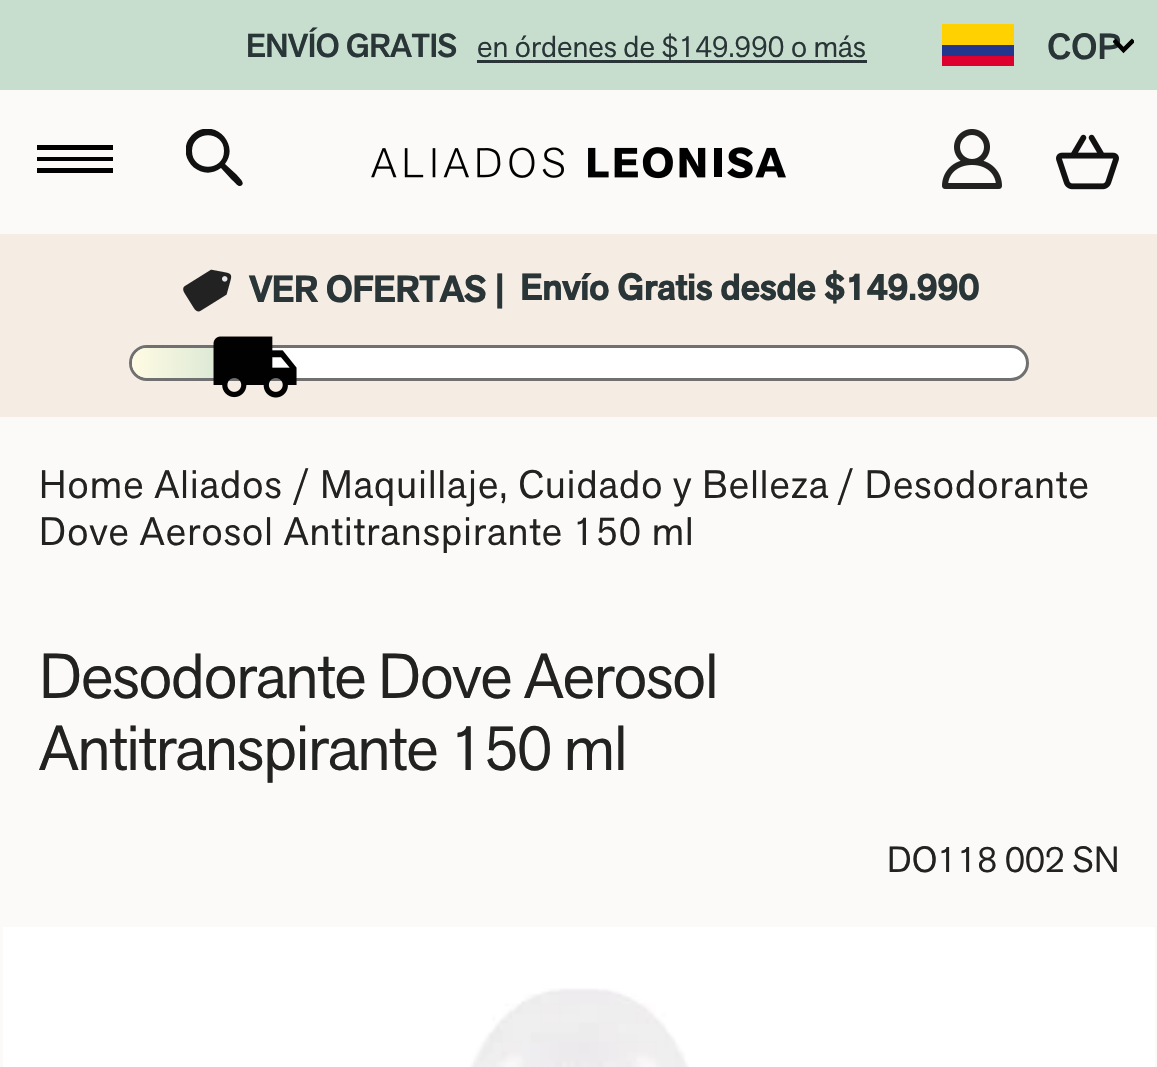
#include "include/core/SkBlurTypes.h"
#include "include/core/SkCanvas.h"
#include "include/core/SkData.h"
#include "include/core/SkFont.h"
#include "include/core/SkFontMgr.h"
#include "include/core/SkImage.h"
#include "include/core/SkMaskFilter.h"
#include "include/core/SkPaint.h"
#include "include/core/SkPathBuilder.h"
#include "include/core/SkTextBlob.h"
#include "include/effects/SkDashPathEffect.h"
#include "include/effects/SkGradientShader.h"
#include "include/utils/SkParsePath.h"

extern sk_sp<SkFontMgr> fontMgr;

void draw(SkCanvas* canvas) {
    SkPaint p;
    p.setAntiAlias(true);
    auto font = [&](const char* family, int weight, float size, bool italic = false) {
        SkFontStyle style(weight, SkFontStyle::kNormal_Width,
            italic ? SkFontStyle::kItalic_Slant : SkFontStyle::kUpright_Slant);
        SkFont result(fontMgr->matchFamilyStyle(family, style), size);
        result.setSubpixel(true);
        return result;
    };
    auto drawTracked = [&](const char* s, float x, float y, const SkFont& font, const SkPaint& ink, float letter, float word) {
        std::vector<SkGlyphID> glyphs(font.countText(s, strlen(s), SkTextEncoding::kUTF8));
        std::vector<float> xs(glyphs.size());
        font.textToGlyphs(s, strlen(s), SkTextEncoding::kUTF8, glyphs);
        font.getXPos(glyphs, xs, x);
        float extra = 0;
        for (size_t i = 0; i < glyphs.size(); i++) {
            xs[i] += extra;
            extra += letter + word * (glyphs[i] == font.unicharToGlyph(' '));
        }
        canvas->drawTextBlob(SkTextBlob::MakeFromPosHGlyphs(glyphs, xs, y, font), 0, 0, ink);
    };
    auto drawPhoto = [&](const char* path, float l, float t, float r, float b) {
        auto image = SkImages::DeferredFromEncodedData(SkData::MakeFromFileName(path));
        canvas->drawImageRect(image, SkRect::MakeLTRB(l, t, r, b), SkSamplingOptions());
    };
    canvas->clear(0xFFFBFAF8);
    p.setColor(0xFFC7DECE);
    canvas->drawRect(SkRect::MakeLTRB(0, 0, 1157, 90), p);
    auto font1 = font("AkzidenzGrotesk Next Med", 500, 33);
    p.setColor(0xFF293537);
    drawTracked("ENVÍO GRATIS", 246, 57, font1, p, -0.75f, 0);
    auto font2 = font("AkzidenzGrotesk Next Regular", 400, 30);
    canvas->drawString("en órdenes de $149.990 o más", 477, 57, font2, p);
    {
        const struct { float l, t, r, b; SkColor color; } items[] = {
            {477, 60, 867, 63, 0xFF293537},
            {942, 24, 1014, 45, 0xFFFFD100},
            {942, 45, 1014, 56, 0xFF22368D},
            {942, 56, 1014, 66, 0xFFDD002F},
        };
        for (auto [l, t, r, b, color] : items) {
            p.setColor(color);
            canvas->drawRect(SkRect::MakeLTRB(l, t, r, b), p);
        }
    }
    auto font3 = font("AkzidenzGrotesk Next Med", 500, 36);
    p.setColor(0xFF293537);
    canvas->drawString("COP", 1047, 59, font3, p);
    canvas->save();
    canvas->clipRect(SkRect::MakeLTRB(1113, 24, 1134, 69));
    p.setStyle(SkPaint::kStroke_Style);
    p.setStrokeWidth(4.5f);
    p.setColor(0xFF000000);
    canvas->drawPath(SkPathBuilder().moveTo(1114, 40).lineTo(1123.5f, 50).lineTo(1133.5f, 40).detach(), p);
    canvas->restore();
    p.setStyle(SkPaint::kFill_Style);
    canvas->drawPath(SkPathBuilder().moveTo(113, 150).lineTo(37, 150).lineTo(37, 145).lineTo(113, 145).close().moveTo(113, 157).lineTo(37, 157).lineTo(37, 161).lineTo(113, 161).close().moveTo(113, 168).lineTo(37, 168).lineTo(37, 173).lineTo(113, 173).close().detach(), p);
    canvas->save();
    canvas->clipRect(SkRect::MakeLTRB(186, 129, 243, 189));
    p.setColor(0xFF111111);
    canvas->drawPath(SkPathBuilder().moveTo(192, 135).cubicTo(173, 155, 200, 184, 221, 168).lineTo(232, 180).cubicTo(234, 181, 239, 189, 242, 185).cubicTo(245, 182, 238, 177, 237, 175).lineTo(225, 164).cubicTo(241, 143, 212, 116, 192, 135).close().moveTo(224, 151).cubicTo(224, 172, 192, 172, 192, 151).cubicTo(192, 130, 224, 130, 224, 151).close().detach(), p);
    canvas->restore();
    drawPhoto("media/1.png", 371, 147, 786, 179);
    drawPhoto("media/2.png", 942, 129, 1002, 189);
    drawPhoto("media/3.png", 1056, 134, 1119, 190);
    p.setColor(0xFFF5ECE3);
    canvas->drawRect(SkRect::MakeLTRB(0, 234, 1157, 417), p);
    drawPhoto("media/4.png", 183, 269, 232, 312);
    auto font4 = font("AkzidenzGrotesk Next Med", 700, 36.25f);
    p.setColor(0xFF293537);
    canvas->drawString("VER OFERTAS |", 249, 302, font4, p);
    canvas->drawString("Envío Gratis desde $149.990", 520, 300, font4, p);
    p.setColor(0xFFFFFFFF);
    canvas->drawRoundRect(SkRect::MakeLTRB(130.5f, 346.5f, 1027.5f, 379.5f), 16.5f, 16.5f, p);
    p.setStyle(SkPaint::kStroke_Style);
    p.setStrokeWidth(3);
    p.setColor(0xFF707070);
    canvas->drawRoundRect(SkRect::MakeLTRB(130.5f, 346.5f, 1027.5f, 379.5f), 16.5f, 16.5f, p);
    p.setStyle(SkPaint::kFill_Style);
    {
        const SkColor colors[] = {0xFFFFFBE3, 0xFFC8DECE};
        const float stops[] = {0, 1};
        const SkPoint ends[] = {{132, 363}, {267, 363}};
        p.setShader(SkGradientShader::MakeLinear(ends, colors, stops, 2, SkTileMode::kClamp));
        p.setAlpha(255);
    }
    canvas->drawRoundRect(SkRect::MakeLTRB(132, 348, 267, 378), 15, 15, p);
    drawPhoto("media/5.png", 213, 336, 297, 398);
    auto font5 = font("AkzidenzGrotesk Next Regular", 400, 39.4f);
    p.setShader(nullptr);
    p.setColor(0xFF222221);
    {
        const struct { const char* s; float x, y; } items[] = {
            {"Home Aliados / Maquillaje, Cuidado y Belleza", 39, 498},
            {"/ Desodorante", 837, 498},
            {"Dove Aerosol Antitranspirante 150 ml", 39, 545},
        };
        for (auto [s, x, y] : items) {
            drawTracked(s, x, y, font5, p, 1.15f, 0);
        }
    }
    auto font6 = font("AkzidenzGrotesk Next Regular", 400, 63);
    drawTracked("Desodorante Dove Aerosol", 39, 698, font6, p, -1.2f, 0);
    drawTracked("Antitranspirante 150 ml", 39, 770, font6, p, -1.2f, 0);
    auto font7 = font("AkzidenzGrotesk Next Regular", 400, 36);
    canvas->drawString("DO118 002 SN", 887, 872, font7, p);
    p.setColor(0xFFFFFFFF);
    canvas->drawRect(SkRect::MakeLTRB(3, 927, 1155, 1067), p);
    drawPhoto("media/6.png", 470, 988, 689, 1067);
}
